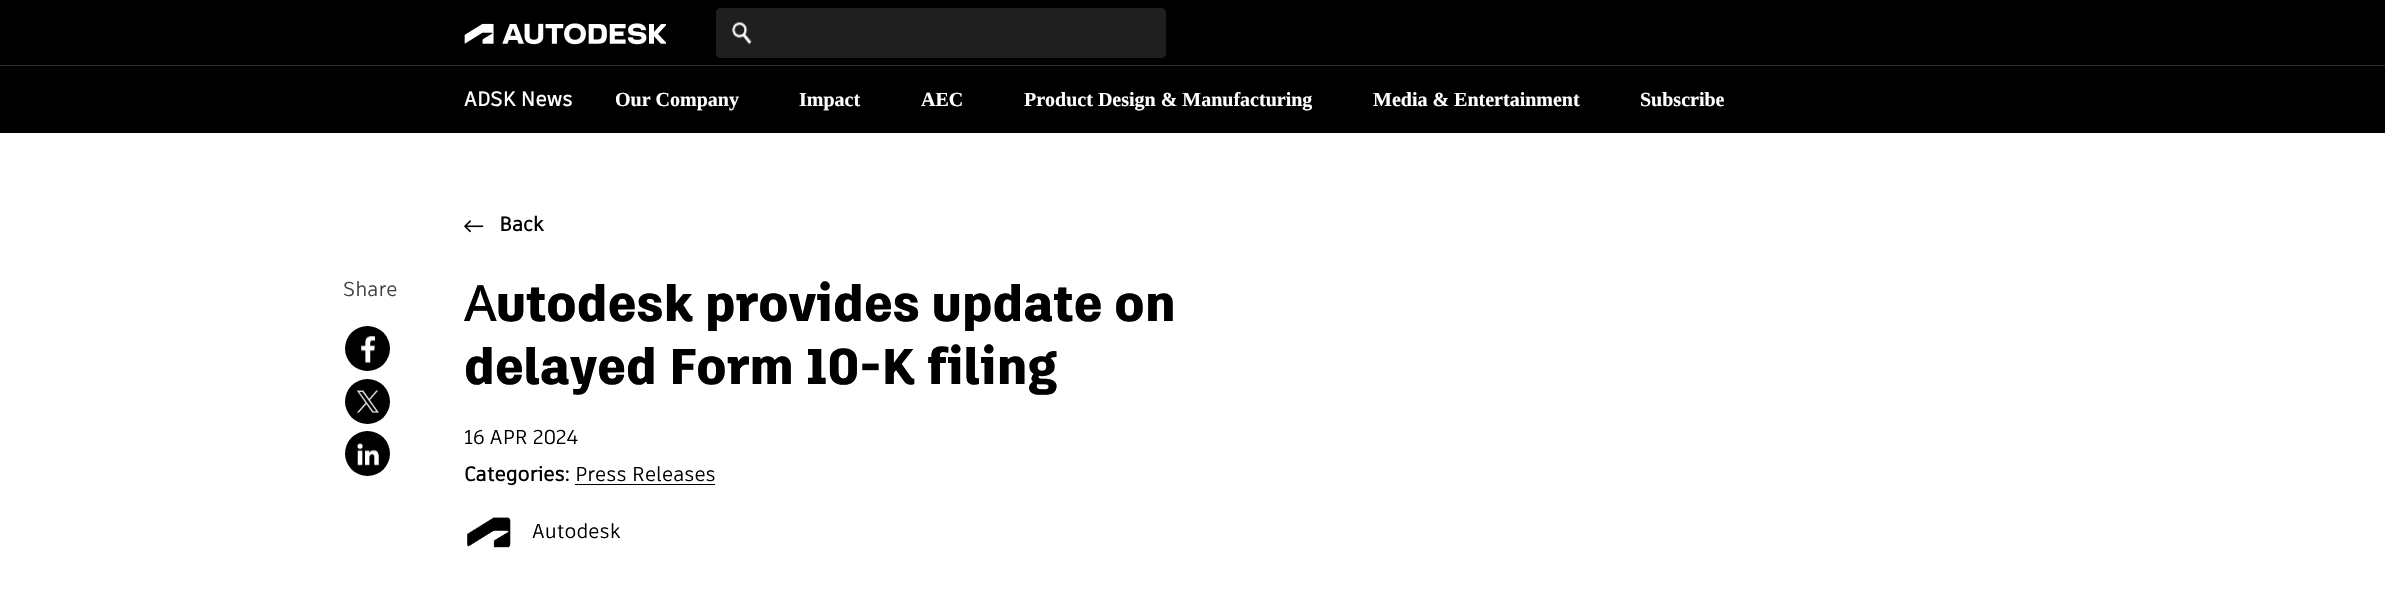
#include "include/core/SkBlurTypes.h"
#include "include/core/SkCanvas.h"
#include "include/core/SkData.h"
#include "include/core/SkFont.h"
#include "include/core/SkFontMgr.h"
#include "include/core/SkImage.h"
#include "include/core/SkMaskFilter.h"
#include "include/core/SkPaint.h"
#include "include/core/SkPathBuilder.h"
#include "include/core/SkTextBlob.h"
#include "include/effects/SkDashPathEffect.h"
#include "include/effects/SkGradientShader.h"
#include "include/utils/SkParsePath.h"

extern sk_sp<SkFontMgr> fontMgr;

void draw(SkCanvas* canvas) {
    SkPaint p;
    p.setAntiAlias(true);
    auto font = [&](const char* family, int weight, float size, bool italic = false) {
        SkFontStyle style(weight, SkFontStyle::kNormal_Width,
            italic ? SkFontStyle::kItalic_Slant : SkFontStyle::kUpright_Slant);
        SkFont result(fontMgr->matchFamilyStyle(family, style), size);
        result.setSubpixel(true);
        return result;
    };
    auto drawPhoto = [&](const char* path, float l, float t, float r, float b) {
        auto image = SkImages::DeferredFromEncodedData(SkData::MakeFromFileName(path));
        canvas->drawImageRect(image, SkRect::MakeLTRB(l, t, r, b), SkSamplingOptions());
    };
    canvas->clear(0xFFFFFFFF);
    p.setColor(0xFF000000);
    canvas->drawRect(SkRect::MakeLTRB(0, 0, 2385, 65), p);
    p.setColor(0xFF333333);
    canvas->drawRect(SkRect::MakeLTRB(0, 65, 2385, 66), p);
    drawPhoto("media/1.png", 464, 23, 666, 45);
    p.setColor(0xFF1F1F1F);
    canvas->drawPath(SkPathBuilder().moveTo(721, 8).lineTo(766, 8).lineTo(766, 58).lineTo(721, 58).cubicTo(718, 58, 716, 56, 716, 53).lineTo(716, 13).cubicTo(716, 10, 718, 8, 721, 8).close().detach(), p);
    drawPhoto("media/2.png", 732, 22, 752, 45);
    canvas->drawPath(SkPathBuilder().moveTo(766, 8).lineTo(1161, 8).cubicTo(1164, 8, 1166, 10, 1166, 13).lineTo(1166, 53).cubicTo(1166, 56, 1164, 58, 1161, 58).lineTo(766, 58).close().detach(), p);
    p.setColor(0xFF000000);
    canvas->drawRect(SkRect::MakeLTRB(0, 66, 2385, 133), p);
    auto font1 = font("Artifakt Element", 700, 20);
    p.setColor(0xFFFFFFFF);
    canvas->drawString("ADSK News", 464, 106, font1, p);
    auto font2 = font("Liberation Serif", 700, 20);
    {
        const struct { const char* s; float x, y; } items[] = {
            {"Our Company", 615, 106},
            {"Impact", 799, 106},
            {"AEC", 921, 106},
            {"Product Design & Manufacturing", 1024, 106},
            {"Media & Entertainment", 1373, 106},
            {"Subscribe", 1640, 106},
        };
        for (auto [s, x, y] : items) {
            canvas->drawString(s, x, y, font2, p);
        }
    }
    auto font3 = font("Artifakt Element", 400, 20);
    p.setColor(0xFF414042);
    canvas->drawString("Share", 343, 296, font3, p);
    p.setColor(0xFF000000);
    canvas->drawCircle(367.5f, 348.5f, 22.5f, p);
    drawPhoto("media/3.png", 361, 336, 375, 364);
    canvas->drawCircle(367.5f, 401.5f, 22.5f, p);
    drawPhoto("media/4.png", 356, 390, 379, 413);
    canvas->drawCircle(367.5f, 453.5f, 22.5f, p);
    drawPhoto("media/5.png", 357, 443, 379, 466);
    drawPhoto("media/6.png", 464, 220, 484, 233);
    canvas->drawString("Back", 499, 231, font1, p);
    auto font4 = font("Noto Sans", 500, 50);
    canvas->drawString("A", 464, 321, font4, p);
    auto font5 = font("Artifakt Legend", 900, 50);
    canvas->drawString("utodesk provides update on", 496, 321, font5, p);
    canvas->drawString("delayed Form 10-K filing", 464, 384, font5, p);
    canvas->drawString("16 APR 2024", 464, 444, font3, p);
    canvas->drawString("Categories:", 464, 481, font1, p);
    canvas->drawString("Press Releases", 575, 481, font3, p);
    canvas->drawRect(SkRect::MakeLTRB(575, 484, 715, 485), p);
    drawPhoto("media/7.png", 467, 517, 511, 548);
    canvas->drawString("Autodesk", 532, 538, font3, p);
}
